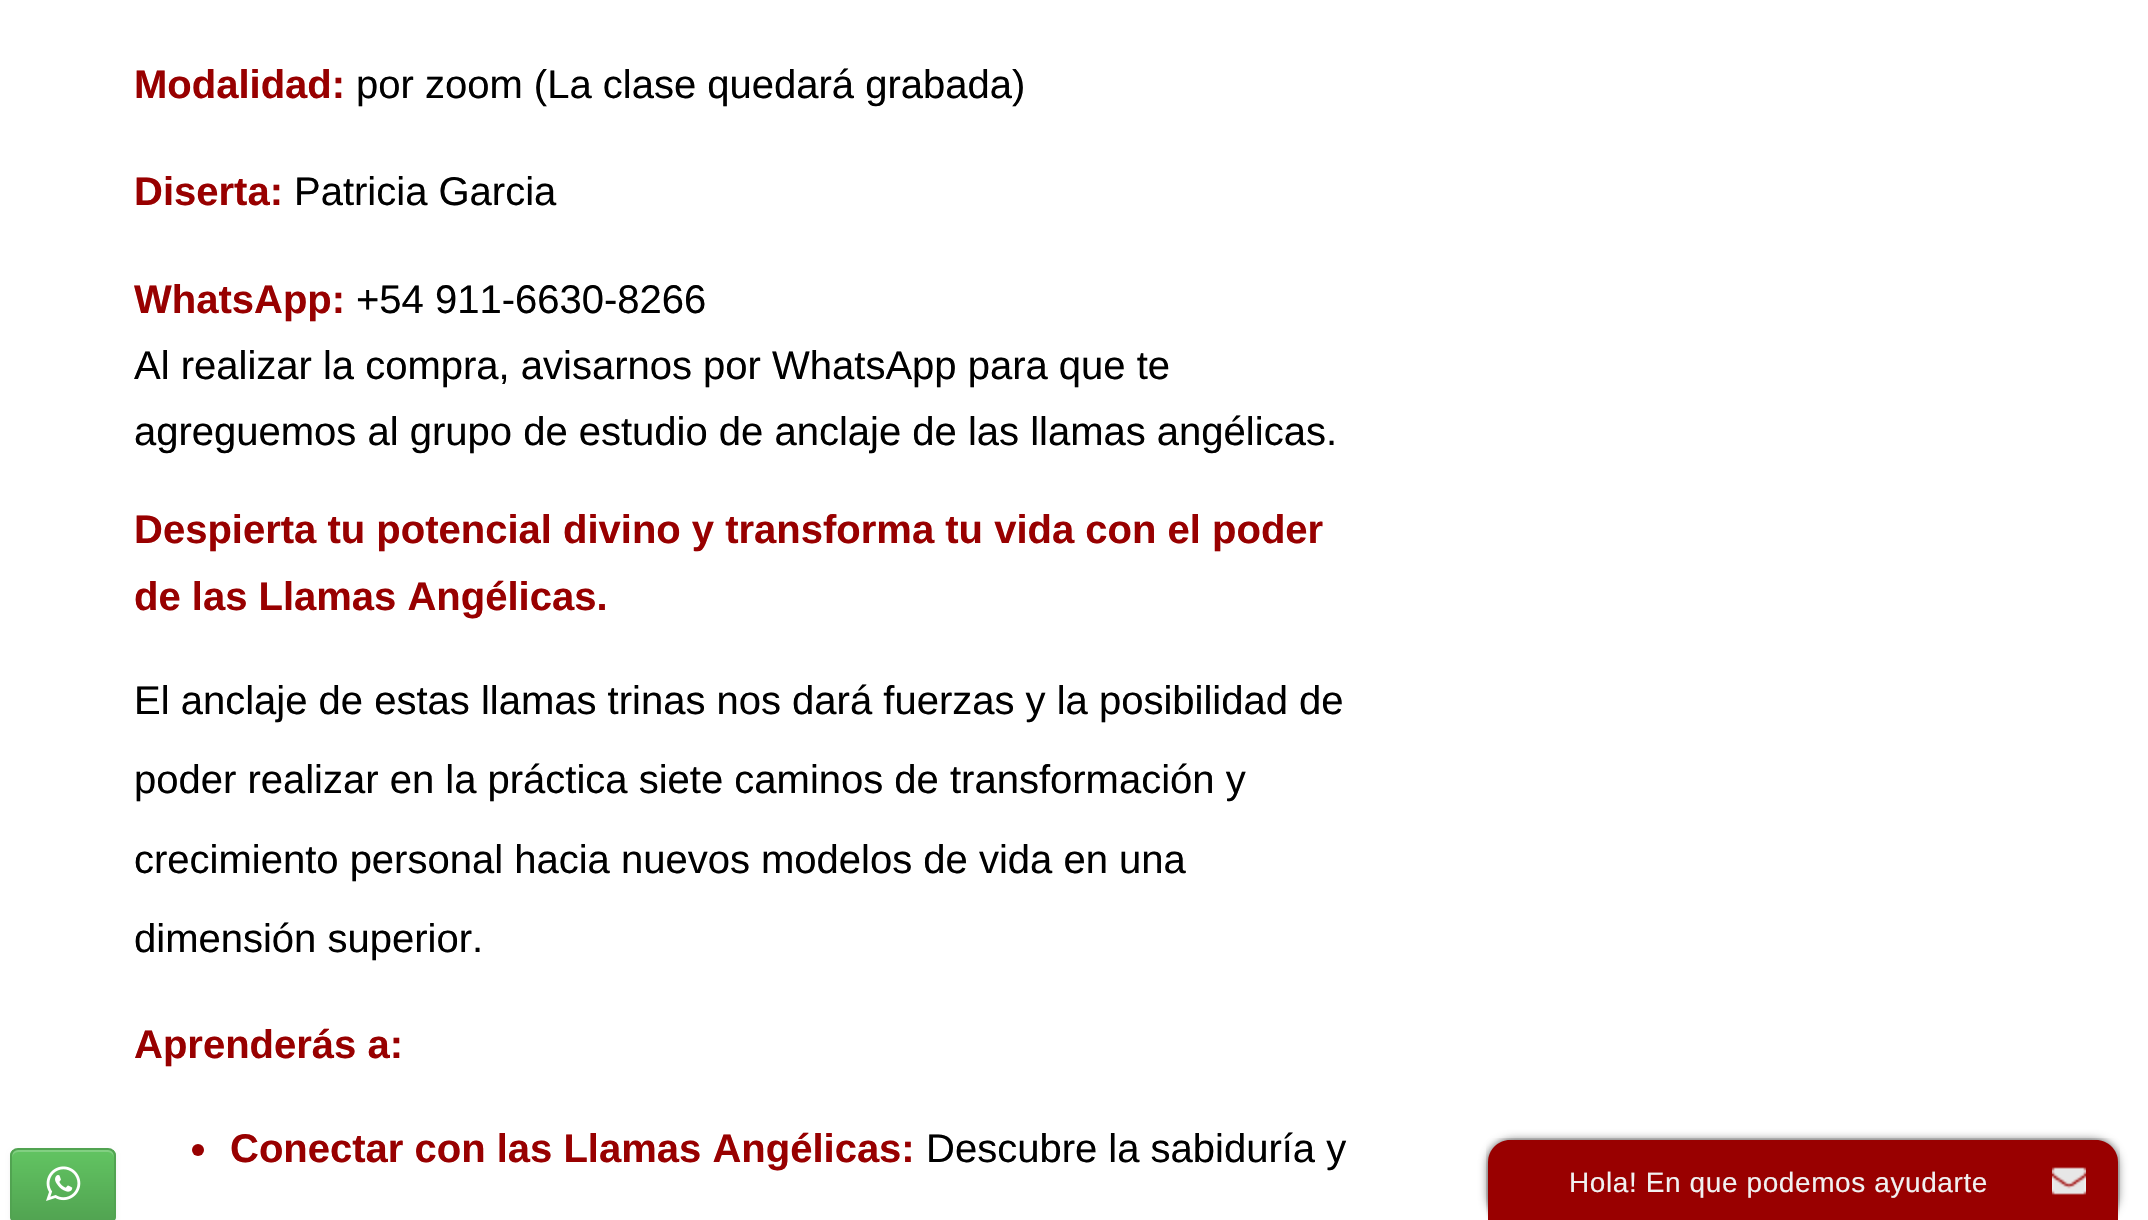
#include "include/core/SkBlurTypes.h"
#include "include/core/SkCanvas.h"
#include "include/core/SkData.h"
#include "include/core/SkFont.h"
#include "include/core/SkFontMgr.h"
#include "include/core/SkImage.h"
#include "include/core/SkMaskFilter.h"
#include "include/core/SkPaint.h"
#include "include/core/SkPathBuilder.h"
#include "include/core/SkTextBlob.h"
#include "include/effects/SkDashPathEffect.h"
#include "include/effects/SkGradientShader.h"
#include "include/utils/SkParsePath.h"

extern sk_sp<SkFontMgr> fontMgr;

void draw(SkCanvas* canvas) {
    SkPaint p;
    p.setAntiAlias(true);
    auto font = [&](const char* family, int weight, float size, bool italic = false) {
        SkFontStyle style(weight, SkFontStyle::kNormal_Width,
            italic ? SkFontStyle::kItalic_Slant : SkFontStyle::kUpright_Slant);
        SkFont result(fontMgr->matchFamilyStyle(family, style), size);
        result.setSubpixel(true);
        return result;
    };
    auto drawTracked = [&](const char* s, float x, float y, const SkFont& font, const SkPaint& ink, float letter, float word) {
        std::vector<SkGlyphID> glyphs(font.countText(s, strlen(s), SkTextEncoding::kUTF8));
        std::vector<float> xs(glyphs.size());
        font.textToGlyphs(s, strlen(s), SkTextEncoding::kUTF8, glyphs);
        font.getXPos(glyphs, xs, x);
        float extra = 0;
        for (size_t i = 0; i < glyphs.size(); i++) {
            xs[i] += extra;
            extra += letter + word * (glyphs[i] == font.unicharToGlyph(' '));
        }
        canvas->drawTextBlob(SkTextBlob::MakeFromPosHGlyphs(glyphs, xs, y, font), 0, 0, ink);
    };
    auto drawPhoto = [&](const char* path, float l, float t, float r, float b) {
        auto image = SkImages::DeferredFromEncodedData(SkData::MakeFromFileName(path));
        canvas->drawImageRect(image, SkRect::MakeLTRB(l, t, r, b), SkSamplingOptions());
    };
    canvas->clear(0xFFFFFFFF);
    auto font1 = font("Liberation Sans", 700, 40);
    p.setColor(0xFF980000);
    canvas->drawString("Modalidad:", 134, 98, font1, p);
    auto font2 = font("Liberation Sans", 400, 40);
    p.setColor(0xFF000000);
    canvas->drawString("por zoom (La clase quedará grabada)", 356, 98, font2, p);
    p.setColor(0xFF980000);
    canvas->drawString("Diserta:", 134, 205, font1, p);
    p.setColor(0xFF000000);
    canvas->drawString("Patricia Garcia", 294, 205, font2, p);
    p.setColor(0xFF980000);
    canvas->drawString("WhatsApp:", 134, 313, font1, p);
    p.setColor(0xFF000000);
    {
        const struct { const char* s; float x, y; } items[] = {
            {"+54 911-6630-8266", 356, 313},
            {"Al realizar la compra, avisarnos por WhatsApp para que te", 134, 379},
            {"agreguemos al grupo de estudio de anclaje de las llamas angélicas.", 134, 445},
        };
        for (auto [s, x, y] : items) {
            canvas->drawString(s, x, y, font2, p);
        }
    }
    p.setColor(0xFF980000);
    canvas->drawString("Despierta tu potencial divino y transforma tu vida con el poder", 134, 543, font1, p);
    canvas->drawString("de las Llamas Angélicas.", 134, 610, font1, p);
    p.setColor(0xFF000000);
    {
        const struct { const char* s; float x, y; } items[] = {
            {"El anclaje de estas llamas trinas nos dará fuerzas y la posibilidad de", 134, 714},
            {"poder realizar en la práctica siete caminos de transformación y", 134, 793},
            {"crecimiento personal hacia nuevos modelos de vida en una", 134, 873},
            {"dimensión superior.", 134, 952},
        };
        for (auto [s, x, y] : items) {
            canvas->drawString(s, x, y, font2, p);
        }
    }
    p.setColor(0xFF980000);
    canvas->drawString("Aprenderás a:", 134, 1058, font1, p);
    canvas->drawCircle(198, 1150, 6, p);
    canvas->drawString("Conectar con las Llamas Angélicas:", 230, 1162, font1, p);
    p.setColor(0xFF000000);
    canvas->drawString("Descubre la sabiduría y", 926, 1162, font2, p);
    p.setColor(0x0D000000);
    p.setMaskFilter(SkMaskFilter::MakeBlur(kNormal_SkBlurStyle, 2));
    canvas->drawRoundRect(SkRect::MakeLTRB(10, 1150, 116, 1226), 8, 8, p);
    p.setMaskFilter(nullptr);
    canvas->save();
    canvas->clipPath(SkPathBuilder().moveTo(18, 1148).lineTo(108, 1148).cubicTo(112.5f, 1148, 116, 1151.5f, 116, 1156).lineTo(116, 1216).cubicTo(116, 1220.5f, 112.5f, 1224, 108, 1224).lineTo(18, 1224).cubicTo(13.5f, 1224, 10, 1220.5f, 10, 1216).lineTo(10, 1156).cubicTo(10, 1151.5f, 13.5f, 1148, 18, 1148).close().detach(), true);
    {
        const SkColor colors[] = {0xFF62C462, 0xFF51A351};
        const float stops[] = {0, 1};
        const SkPoint ends[] = {{63, 1150}, {63, 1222}};
        p.setShader(SkGradientShader::MakeLinear(ends, colors, stops, 2, SkTileMode::kClamp));
        p.setAlpha(255);
    }
    canvas->drawRect(SkRect::MakeLTRB(10, 1150, 116, 1220), p);
    canvas->restore();
    p.setShader(nullptr);
    p.setColor(0x33FFFFFF);
    canvas->drawPath(SkPathBuilder().moveTo(18, 1152).lineTo(108, 1152).cubicTo(111, 1152, 114, 1155, 114, 1158).cubicTo(114, 1146, 102, 1150, 93, 1150).lineTo(33, 1150).cubicTo(24, 1150, 12, 1146, 12, 1158).cubicTo(12, 1155, 15, 1152, 18, 1152).close().detach(), p);
    p.setStyle(SkPaint::kStroke_Style);
    p.setStrokeWidth(2);
    p.setColor(0xFF51A351);
    canvas->drawPath(SkPathBuilder().moveTo(13, 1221).cubicTo(11.5f, 1219.5f, 11, 1218, 11, 1216).lineTo(11, 1156).cubicTo(11, 1154, 11.5f, 1152.5f, 13, 1151).cubicTo(14.5f, 1149.5f, 16, 1149, 18, 1149).lineTo(108, 1149).cubicTo(110, 1149, 111.5f, 1149.5f, 113, 1151).cubicTo(114.5f, 1152.5f, 115, 1154, 115, 1156).lineTo(115, 1216).cubicTo(115, 1218, 114.5f, 1219.5f, 113, 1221).detach(), p);
    drawPhoto("media/1.png", 46, 1166, 81, 1201);
    p.setStyle(SkPaint::kFill_Style);
    p.setColor(0xFF777777);
    p.setMaskFilter(SkMaskFilter::MakeBlur(kNormal_SkBlurStyle, 5));
    canvas->drawRoundRect(SkRect::MakeLTRB(1488, 1140, 2118, 1220), 26, 26, p);
    p.setMaskFilter(nullptr);
    drawPhoto("media/2.png", 1486, 1138, 2120, 1219);
    p.setColor(0xFF990000);
    canvas->drawPath(SkPathBuilder().moveTo(1510, 1140).lineTo(2096, 1140).cubicTo(2108, 1140, 2118, 1150, 2118, 1162).lineTo(2118, 1220).lineTo(1488, 1220).lineTo(1488, 1162).cubicTo(1488, 1150, 1498, 1140, 1510, 1140).close().detach(), p);
    auto font3 = font("Liberation Sans", 400, 28);
    p.setColor(0xFFF1F1F1);
    drawTracked("Hola! En que podemos ayudarte", 1569, 1192, font3, p, 0.6f, 0);
    drawPhoto("media/3.png", 2052, 1167, 2086, 1195);
}
